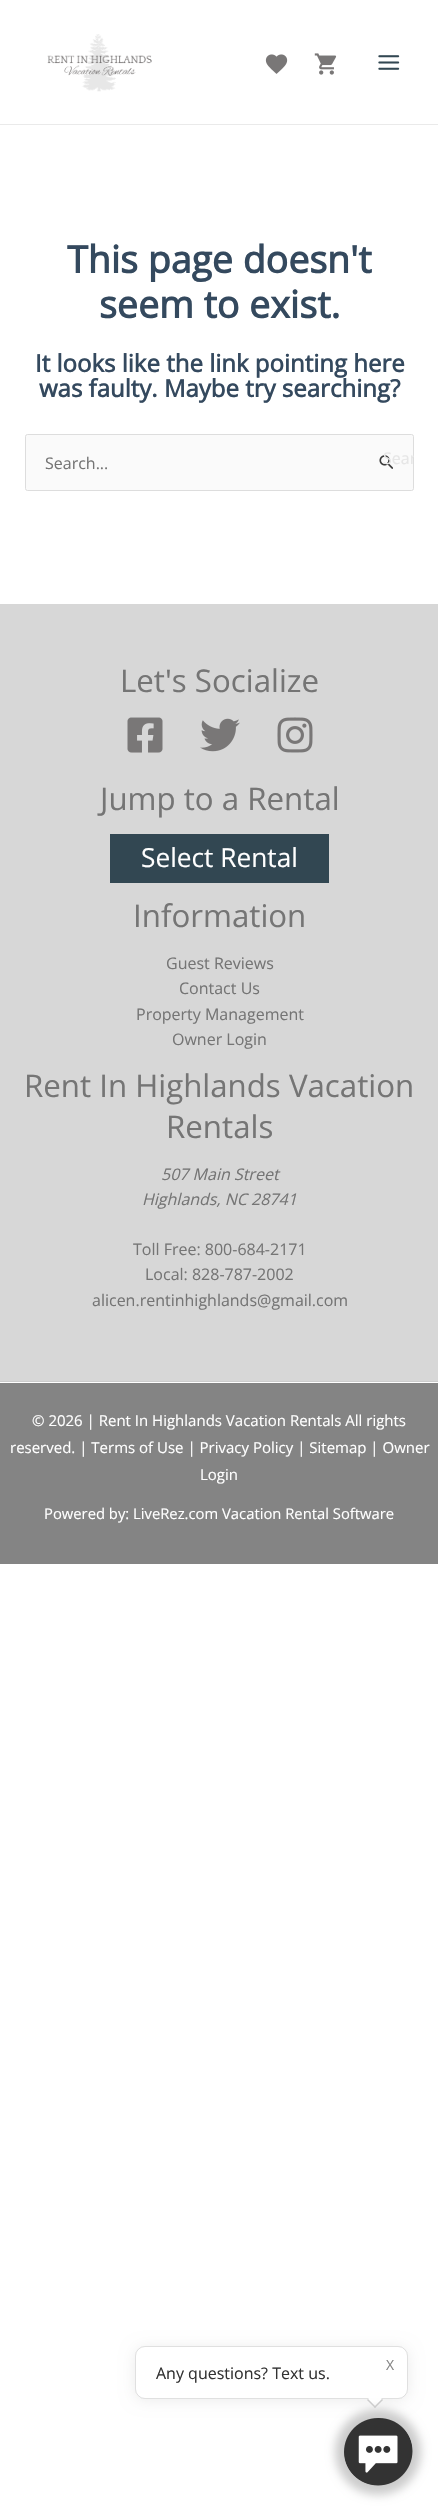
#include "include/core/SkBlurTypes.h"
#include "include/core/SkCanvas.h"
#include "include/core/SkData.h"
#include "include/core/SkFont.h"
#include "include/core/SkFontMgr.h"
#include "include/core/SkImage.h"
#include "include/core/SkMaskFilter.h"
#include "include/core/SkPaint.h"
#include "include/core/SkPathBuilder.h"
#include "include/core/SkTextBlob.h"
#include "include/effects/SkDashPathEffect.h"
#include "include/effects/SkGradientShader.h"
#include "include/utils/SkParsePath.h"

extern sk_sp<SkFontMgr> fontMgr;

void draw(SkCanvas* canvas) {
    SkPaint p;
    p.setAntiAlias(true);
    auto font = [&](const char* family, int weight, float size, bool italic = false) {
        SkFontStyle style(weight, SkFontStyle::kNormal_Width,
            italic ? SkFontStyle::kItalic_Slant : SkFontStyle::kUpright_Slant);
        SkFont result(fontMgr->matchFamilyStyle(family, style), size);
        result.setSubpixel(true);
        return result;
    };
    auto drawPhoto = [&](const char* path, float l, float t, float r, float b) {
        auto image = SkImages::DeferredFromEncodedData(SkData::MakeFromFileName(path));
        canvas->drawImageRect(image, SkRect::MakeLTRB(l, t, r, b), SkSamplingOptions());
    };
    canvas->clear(0xFFFFFFFF);
    p.setColor(0xFFEAEAEA);
    canvas->drawRect(SkRect::MakeLTRB(0, 124, 438, 125), p);
    drawPhoto("media/1.png", 47, 34, 152, 92);
    drawPhoto("media/2.png", 265, 54, 288, 74);
    drawPhoto("media/3.png", 314, 53, 337, 75);
    drawPhoto("media/4.png", 378, 55, 400, 70);
    auto font1 = font("Open Sans", 700, 37.5f);
    p.setColor(0xFF34495E);
    canvas->drawString("This page doesn't", 67, 273, font1, p);
    canvas->drawString("seem to exist.", 99, 318, font1, p);
    auto font2 = font("Open Sans", 700, 24);
    canvas->drawString("It looks like the link pointing here", 35, 372, font2, p);
    canvas->drawString("was faulty. Maybe try searching?", 39, 397, font2, p);
    p.setColor(0xFFFAFAFA);
    canvas->drawRoundRect(SkRect::MakeLTRB(25.5f, 434.5f, 413.5f, 490.5f), 2, 2, p);
    p.setStyle(SkPaint::kStroke_Style);
    p.setStrokeWidth(1);
    p.setColor(0xFFDDDDDD);
    canvas->drawRoundRect(SkRect::MakeLTRB(25.5f, 434.5f, 413.5f, 490.5f), 2, 2, p);
    auto font3 = font("Open Sans", 400, 16);
    p.setStyle(SkPaint::kFill_Style);
    p.setColor(0xFF757575);
    canvas->drawString("Search...", 45, 469, font3, p);
    drawPhoto("media/5.png", 379, 455, 393, 469);
    canvas->save();
    canvas->clipPath(SkPathBuilder().moveTo(360.5f, 434).lineTo(411.5f, 434).cubicTo(413, 434, 414, 435, 414, 436.5f).lineTo(414, 480.5f).cubicTo(414, 482, 413, 483, 411.5f, 483).lineTo(360.5f, 483).cubicTo(359, 483, 358, 482, 358, 480.5f).lineTo(358, 436.5f).cubicTo(358, 435, 359, 434, 360.5f, 434).close().detach(), true);
    p.setColor(0xFFE6E6E6);
    canvas->drawString("Sear", 383, 464, font3, p);
    canvas->restore();
    p.setColor(0xFFD7D7D7);
    canvas->drawRect(SkRect::MakeLTRB(0, 604, 438, 1381), p);
    auto font4 = font("Open Sans", 400, 31.25f);
    p.setColor(0xFF757575);
    canvas->drawString("Let's Socialize", 120, 692, font4, p);
    drawPhoto("media/6.png", 127, 717, 163, 753);
    drawPhoto("media/7.png", 200, 718, 240, 752);
    drawPhoto("media/8.png", 277, 717, 313, 753);
    canvas->drawString("Jump to a Rental", 100, 810, font4, p);
    p.setColor(0xFF324752);
    canvas->drawRect(SkRect::MakeLTRB(110, 834, 329, 883), p);
    auto font5 = font("Open Sans", 400, 26.25f);
    p.setColor(0xFFFFFFFF);
    canvas->drawString("Select Rental", 141, 867, font5, p);
    p.setColor(0xFF757575);
    canvas->drawString("Information", 133, 927, font4, p);
    {
        const struct { const char* s; float x, y; } items[] = {
            {"Guest Reviews", 166, 969},
            {"Contact Us", 179, 994},
            {"Property Management", 136, 1020},
            {"Owner Login", 172, 1045},
        };
        for (auto [s, x, y] : items) {
            canvas->drawString(s, x, y, font3, p);
        }
    }
    canvas->drawString("Rent In Highlands Vacation", 24, 1097, font4, p);
    canvas->drawString("Rentals", 166, 1138, font4, p);
    auto font6 = font("Open Sans", 400, 16, true);
    canvas->drawString("507 Main Street", 161, 1180, font6, p);
    canvas->drawString("Highlands, NC 28741", 142, 1205, font6, p);
    {
        const struct { const char* s; float x, y; } items[] = {
            {"Toll Free: 800-684-2171", 133, 1255},
            {"Local: 828-787-2002", 145, 1280},
            {"alicen.rentinhighlands@gmail.com", 92, 1306},
        };
        for (auto [s, x, y] : items) {
            canvas->drawString(s, x, y, font3, p);
        }
    }
    p.setColor(0xFF848484);
    canvas->drawRect(SkRect::MakeLTRB(0, 1383, 438, 1564), p);
    p.setColor(0xFFCCCCCC);
    canvas->drawRect(SkRect::MakeLTRB(0, 1381, 438, 1382), p);
    auto font7 = font("Open Sans", 400, 15);
    p.setColor(0xFFFFFFFF);
    {
        const struct { const char* s; float x, y; } items[] = {
            {"© 2026 | Rent In Highlands Vacation Rentals All rights", 32, 1426},
            {"reserved. | Terms of Use | Privacy Policy | Sitemap | Owner", 10, 1453},
            {"Login", 200, 1480},
        };
        for (auto [s, x, y] : items) {
            canvas->drawString(s, x, y, font7, p);
        }
    }
    auto font8 = font("Open Sans", 400, 14.8f);
    canvas->drawString("Powered by: LiveRez.com Vacation Rental Software", 44, 1519, font8, p);
    p.setColor(0x14000000);
    p.setMaskFilter(SkMaskFilter::MakeBlur(kNormal_SkBlurStyle, 7.5f));
    canvas->drawRoundRect(SkRect::MakeLTRB(135, 2348, 408, 2400), 10, 10, p);
    p.setMaskFilter(nullptr);
    p.setColor(0xFFFFFFFF);
    canvas->drawRoundRect(SkRect::MakeLTRB(135, 2346, 408, 2399), 10, 10, p);
    p.setStyle(SkPaint::kStroke_Style);
    p.setColor(0x1F000000);
    canvas->drawRoundRect(SkRect::MakeLTRB(135.5f, 2346.5f, 407.5f, 2398.5f), 9.5f, 9.5f, p);
    p.setStyle(SkPaint::kFill_Style);
    p.setColor(0x99FFFFFF);
    canvas->drawRect(SkRect::MakeLTRB(402, 2348, 403, 2349), p);
    auto font9 = font("Open Sans", 400, 14);
    p.setColor(0xFF858585);
    canvas->drawString("X", 386, 2370, font9, p);
    p.setColor(0xFF333333);
    canvas->drawString("Any questions? Text us.", 156, 2379, font3, p);
    p.setColor(0xFFFFFFFF);
    canvas->drawPath(SkPathBuilder().moveTo(375, 2392).lineTo(382, 2399).lineTo(375, 2406).lineTo(368, 2399).close().detach(), p);
    p.setColor(0xFFCCCCCC);
    canvas->drawPath(SkPathBuilder().moveTo(382, 2399).lineTo(383, 2400).lineTo(375, 2408).lineTo(374, 2407).close().detach(), p);
    canvas->drawPath(SkPathBuilder().moveTo(368, 2399).lineTo(376, 2407).lineTo(375, 2408).lineTo(367, 2400).close().detach(), p);
    p.setMaskFilter(SkMaskFilter::MakeBlur(kNormal_SkBlurStyle, 5));
    canvas->drawRoundRect(SkRect::MakeLTRB(335, 2409, 421, 2495), 43, 43, p);
    p.setMaskFilter(nullptr);
    drawPhoto("media/9.png", 344, 2418, 413, 2486);
}
